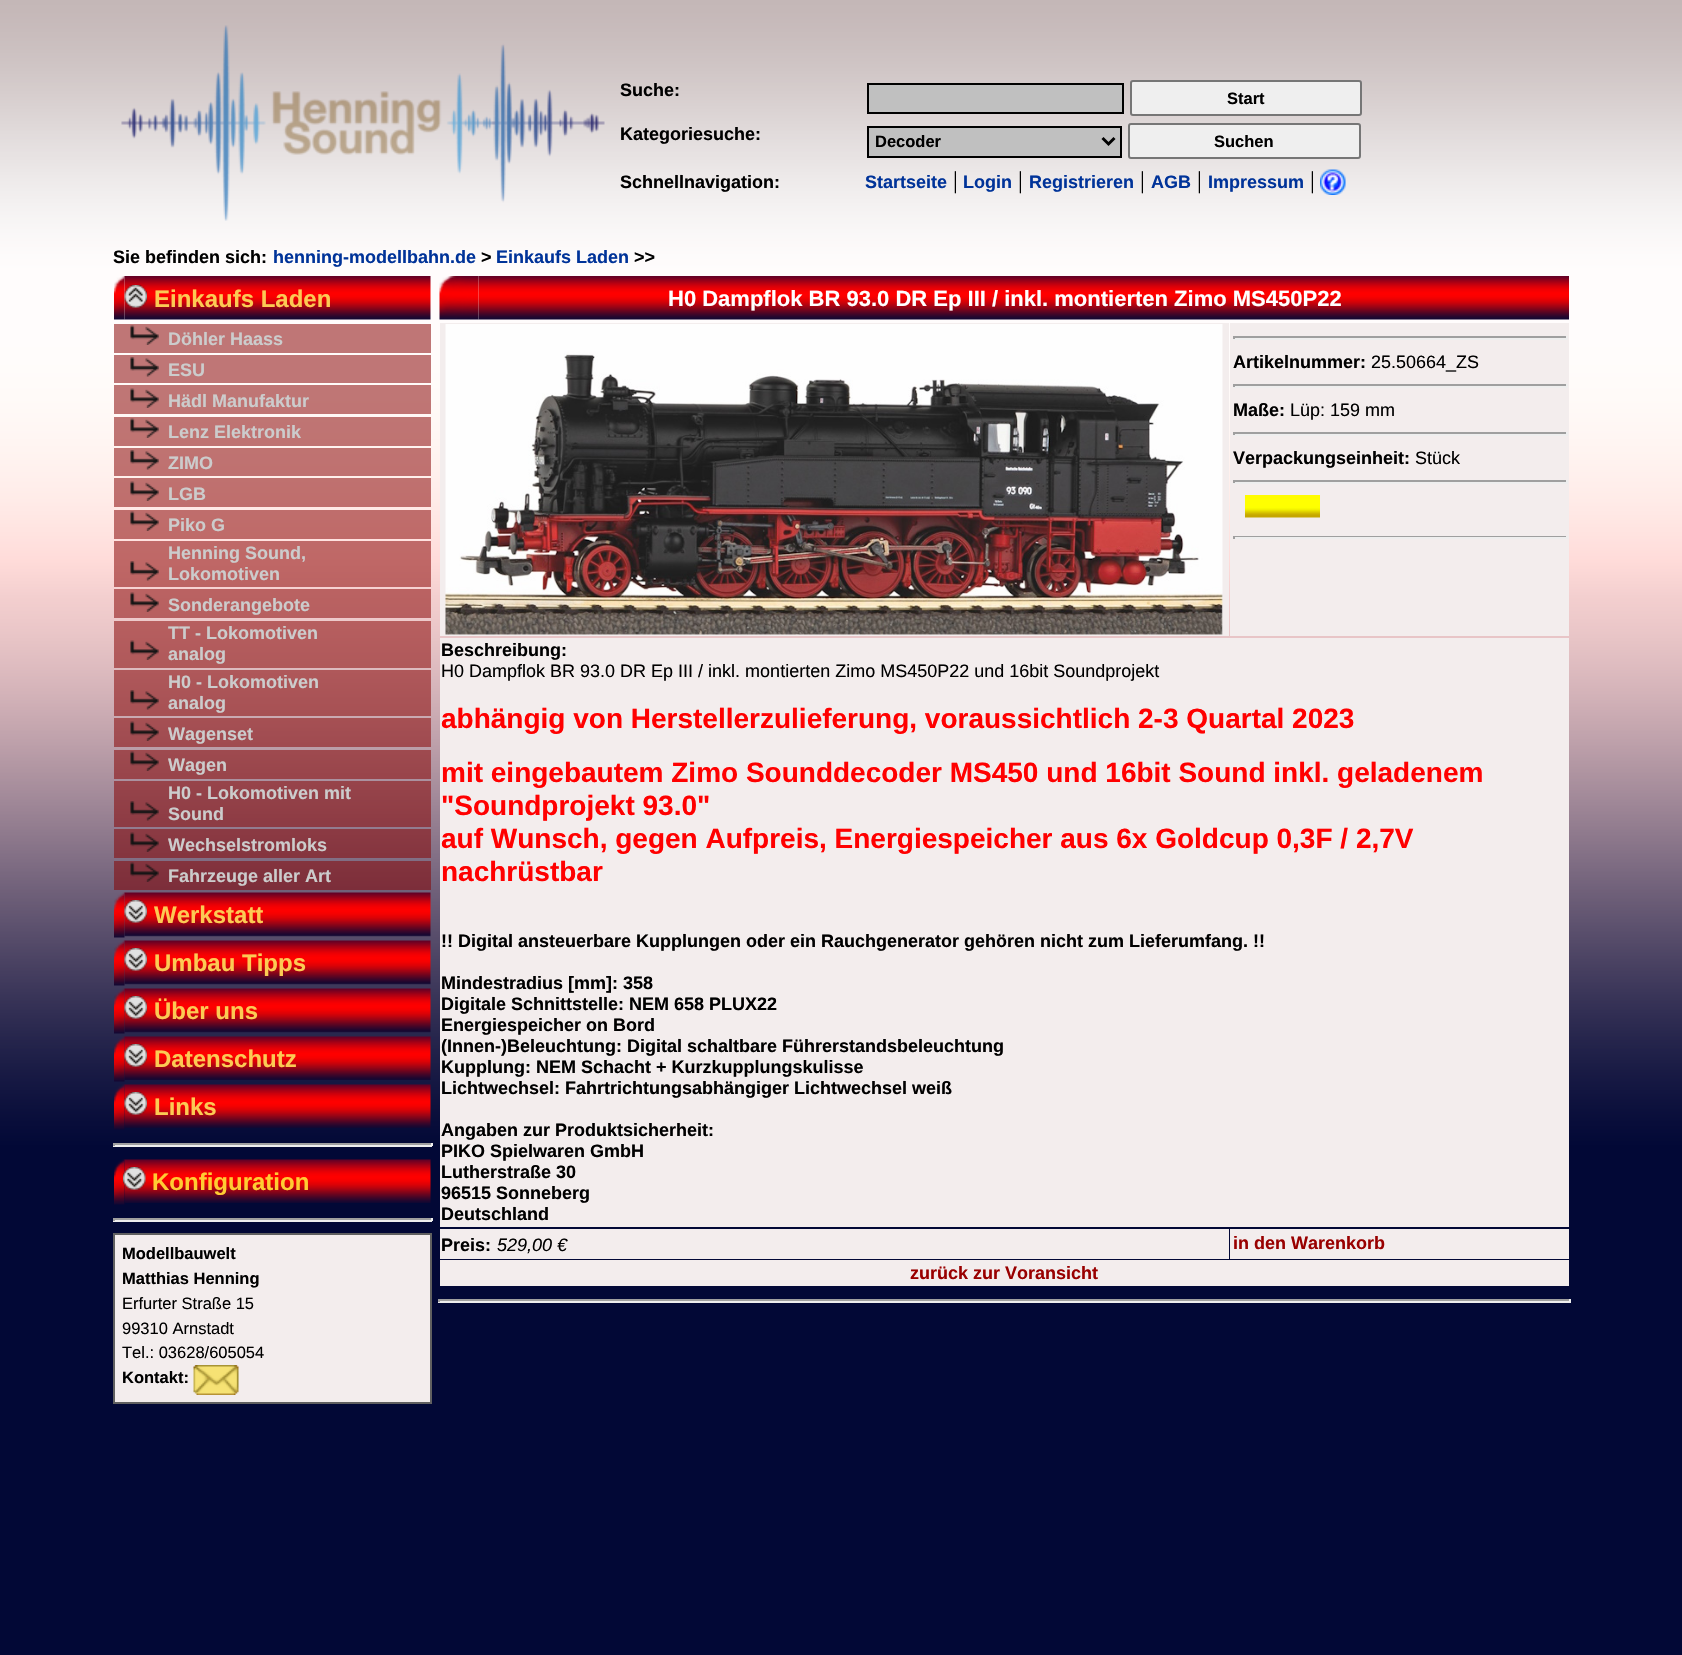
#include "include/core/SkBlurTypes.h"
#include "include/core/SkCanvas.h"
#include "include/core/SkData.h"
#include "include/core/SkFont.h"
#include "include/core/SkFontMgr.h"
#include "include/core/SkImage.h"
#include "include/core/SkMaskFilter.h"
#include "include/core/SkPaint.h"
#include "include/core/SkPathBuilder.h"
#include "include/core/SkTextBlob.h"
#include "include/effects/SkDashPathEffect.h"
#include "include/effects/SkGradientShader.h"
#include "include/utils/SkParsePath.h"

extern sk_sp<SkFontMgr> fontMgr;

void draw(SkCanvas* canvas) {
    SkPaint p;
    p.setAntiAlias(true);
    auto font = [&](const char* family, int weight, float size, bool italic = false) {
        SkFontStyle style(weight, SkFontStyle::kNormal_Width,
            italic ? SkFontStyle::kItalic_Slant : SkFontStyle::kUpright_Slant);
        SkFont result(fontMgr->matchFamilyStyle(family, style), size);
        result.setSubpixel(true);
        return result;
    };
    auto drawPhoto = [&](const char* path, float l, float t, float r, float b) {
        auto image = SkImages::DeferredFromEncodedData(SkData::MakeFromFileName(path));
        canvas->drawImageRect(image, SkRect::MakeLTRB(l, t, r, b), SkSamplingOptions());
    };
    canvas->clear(0xFFFFFFFF);
    drawPhoto("media/1.png", 0, 0, 1682, 1655);
    drawPhoto("media/2.png", 121, 25, 605, 221);
    auto font1 = font("Liberation Sans", 700, 18);
    p.setColor(0xFF000000);
    canvas->drawString("Suche:", 620, 96, font1, p);
    p.setColor(0xFFC0C0C0);
    canvas->drawRect(SkRect::MakeLTRB(868, 84, 1123, 113), p);
    p.setStyle(SkPaint::kStroke_Style);
    p.setStrokeWidth(2);
    p.setColor(0xFF000000);
    canvas->drawRect(SkRect::MakeLTRB(868, 84, 1123, 113), p);
    p.setStyle(SkPaint::kFill_Style);
    p.setColor(0xFFEFEFEF);
    canvas->drawRoundRect(SkRect::MakeLTRB(1131, 81, 1361, 115), 2, 2, p);
    p.setStyle(SkPaint::kStroke_Style);
    p.setColor(0xFF767676);
    canvas->drawRoundRect(SkRect::MakeLTRB(1131, 81, 1361, 115), 2, 2, p);
    auto font2 = font("Liberation Sans", 700, 16.5f);
    p.setStyle(SkPaint::kFill_Style);
    p.setColor(0xFF000000);
    canvas->drawString("Start", 1227, 104, font2, p);
    canvas->drawString("Kategoriesuche:", 620, 140, font1, p);
    p.setColor(0xFFC0C0C0);
    canvas->drawRect(SkRect::MakeLTRB(868, 127, 1121, 157), p);
    p.setStyle(SkPaint::kStroke_Style);
    p.setColor(0xFF000000);
    canvas->drawRect(SkRect::MakeLTRB(868, 127, 1121, 157), p);
    p.setStrokeWidth(3);
    canvas->drawPath(SkPathBuilder().moveTo(1102.5f, 138).lineTo(1108.5f, 144).lineTo(1114.5f, 138).detach(), p);
    p.setStyle(SkPaint::kFill_Style);
    canvas->drawString("Decoder", 875, 147, font2, p);
    p.setColor(0xFFEFEFEF);
    canvas->drawRoundRect(SkRect::MakeLTRB(1129, 124, 1360, 158), 2, 2, p);
    p.setStyle(SkPaint::kStroke_Style);
    p.setStrokeWidth(2);
    p.setColor(0xFF767676);
    canvas->drawRoundRect(SkRect::MakeLTRB(1129, 124, 1360, 158), 2, 2, p);
    p.setStyle(SkPaint::kFill_Style);
    p.setColor(0xFF000000);
    canvas->drawString("Suchen", 1214, 147, font2, p);
    canvas->drawString("Schnellnavigation:", 620, 188, font1, p);
    p.setColor(0xFF003399);
    canvas->drawString("Startseite", 865, 188, font1, p);
    auto font3 = font("Liberation Serif", 400, 24);
    p.setColor(0xFF000000);
    canvas->drawString("|", 953, 188, font3, p);
    p.setColor(0xFF003399);
    canvas->drawString("Login", 963, 188, font1, p);
    p.setColor(0xFF000000);
    canvas->drawString("|", 1018, 188, font3, p);
    p.setColor(0xFF003399);
    canvas->drawString("Registrieren", 1029, 188, font1, p);
    p.setColor(0xFF000000);
    canvas->drawString("|", 1140, 188, font3, p);
    p.setColor(0xFF003399);
    canvas->drawString("AGB", 1151, 188, font1, p);
    p.setColor(0xFF000000);
    canvas->drawString("|", 1197, 188, font3, p);
    p.setColor(0xFF003399);
    canvas->drawString("Impressum", 1208, 188, font1, p);
    p.setColor(0xFF000000);
    canvas->drawString("|", 1310, 188, font3, p);
    drawPhoto("media/3.png", 1320, 169, 1346, 195);
    canvas->drawString("Sie befinden sich:", 113, 263, font1, p);
    p.setColor(0xFF003399);
    canvas->drawString("henning-modellbahn.de", 273, 263, font1, p);
    p.setColor(0xFF000000);
    canvas->drawString(">", 481, 263, font1, p);
    p.setColor(0xFF003399);
    canvas->drawString("Einkaufs Laden", 496, 263, font1, p);
    p.setColor(0xFF000000);
    canvas->drawString(">>", 634, 263, font1, p);
    drawPhoto("media/4.png", 114, 276, 125, 320);
    drawPhoto("media/5.png", 124, 276, 420, 320);
    drawPhoto("media/6.png", 124, 285, 147, 308);
    auto font4 = font("Liberation Sans", 700, 24);
    p.setColor(0xFFFCCA54);
    canvas->drawString("Einkaufs Laden", 154, 307, font4, p);
    drawPhoto("media/7.png", 420, 276, 431, 320);
    p.setColor(0xFFBF7676);
    canvas->drawRect(SkRect::MakeLTRB(114, 324, 431, 353), p);
    drawPhoto("media/8.png", 130, 325, 159, 345);
    p.setColor(0xFFCCCCCC);
    canvas->drawString("Döhler Haass", 168, 345, font1, p);
    p.setColor(0xFFBF7676);
    canvas->drawRect(SkRect::MakeLTRB(114, 355, 431, 383), p);
    drawPhoto("media/9.png", 130, 357, 159, 377);
    p.setColor(0xFFCCCCCC);
    canvas->drawString("ESU", 168, 376, font1, p);
    p.setColor(0x87860000);
    canvas->drawRect(SkRect::MakeLTRB(114, 385, 431, 414), p);
    drawPhoto("media/10.png", 130, 388, 159, 408);
    p.setColor(0xFFCCCCCC);
    canvas->drawString("Hädl Manufaktur", 168, 407, font1, p);
    p.setColor(0x87860000);
    canvas->drawRect(SkRect::MakeLTRB(114, 417, 431, 446), p);
    drawPhoto("media/11.png", 130, 418, 159, 438);
    p.setColor(0xFFCCCCCC);
    canvas->drawString("Lenz Elektronik", 168, 438, font1, p);
    p.setColor(0x87860000);
    canvas->drawRect(SkRect::MakeLTRB(114, 448, 431, 476), p);
    drawPhoto("media/12.png", 130, 450, 159, 470);
    p.setColor(0xFFCCCCCC);
    canvas->drawString("ZIMO", 168, 469, font1, p);
    p.setColor(0x87860000);
    canvas->drawRect(SkRect::MakeLTRB(114, 478, 431, 507), p);
    drawPhoto("media/13.png", 130, 481, 159, 501);
    p.setColor(0xFFCCCCCC);
    canvas->drawString("LGB", 168, 500, font1, p);
    p.setColor(0x87860000);
    canvas->drawRect(SkRect::MakeLTRB(114, 510, 431, 539), p);
    drawPhoto("media/14.png", 130, 511, 159, 531);
    p.setColor(0xFFCCCCCC);
    canvas->drawString("Piko G", 168, 531, font1, p);
    p.setColor(0x87860000);
    canvas->drawRect(SkRect::MakeLTRB(114, 541, 431, 587), p);
    drawPhoto("media/15.png", 130, 561, 159, 581);
    p.setColor(0xFFCCCCCC);
    canvas->drawString("Henning Sound,", 168, 559, font1, p);
    canvas->drawString("Lokomotiven", 168, 580, font1, p);
    p.setColor(0x87860000);
    canvas->drawRect(SkRect::MakeLTRB(114, 589, 431, 618), p);
    drawPhoto("media/16.png", 130, 592, 159, 612);
    p.setColor(0xFFCCCCCC);
    canvas->drawString("Sonderangebote", 168, 611, font1, p);
    p.setColor(0x87860000);
    canvas->drawRect(SkRect::MakeLTRB(114, 621, 431, 668), p);
    drawPhoto("media/17.png", 130, 640, 159, 660);
    p.setColor(0xFFCCCCCC);
    canvas->drawString("TT - Lokomotiven", 168, 639, font1, p);
    canvas->drawString("analog", 168, 660, font1, p);
    p.setColor(0x87860000);
    canvas->drawRect(SkRect::MakeLTRB(114, 670, 431, 716), p);
    drawPhoto("media/18.png", 130, 690, 159, 710);
    p.setColor(0xFFCCCCCC);
    canvas->drawString("H0 - Lokomotiven", 168, 688, font1, p);
    canvas->drawString("analog", 168, 709, font1, p);
    p.setColor(0x87860000);
    canvas->drawRect(SkRect::MakeLTRB(114, 718, 431, 747), p);
    drawPhoto("media/19.png", 130, 721, 159, 741);
    p.setColor(0xFFCCCCCC);
    canvas->drawString("Wagenset", 168, 740, font1, p);
    p.setColor(0x87860000);
    canvas->drawRect(SkRect::MakeLTRB(114, 750, 431, 779), p);
    drawPhoto("media/20.png", 130, 751, 159, 771);
    p.setColor(0xFFCCCCCC);
    canvas->drawString("Wagen", 168, 771, font1, p);
    p.setColor(0x87860000);
    canvas->drawRect(SkRect::MakeLTRB(114, 781, 431, 827), p);
    drawPhoto("media/21.png", 130, 801, 159, 821);
    p.setColor(0xFFCCCCCC);
    canvas->drawString("H0 - Lokomotiven mit", 168, 799, font1, p);
    canvas->drawString("Sound", 168, 820, font1, p);
    p.setColor(0x87860000);
    canvas->drawRect(SkRect::MakeLTRB(114, 829, 431, 858), p);
    drawPhoto("media/22.png", 130, 832, 159, 852);
    p.setColor(0xFFCCCCCC);
    canvas->drawString("Wechselstromloks", 168, 851, font1, p);
    p.setColor(0x87860000);
    canvas->drawRect(SkRect::MakeLTRB(114, 861, 431, 890), p);
    drawPhoto("media/23.png", 130, 862, 159, 882);
    p.setColor(0xFFCCCCCC);
    canvas->drawString("Fahrzeuge aller Art", 168, 882, font1, p);
    drawPhoto("media/24.png", 114, 892, 125, 938);
    drawPhoto("media/25.png", 124, 892, 420, 937);
    drawPhoto("media/26.png", 124, 900, 147, 923);
    p.setColor(0xFFFCCA54);
    canvas->drawString("Werkstatt", 154, 923, font4, p);
    drawPhoto("media/27.png", 420, 892, 431, 937);
    drawPhoto("media/28.png", 114, 940, 125, 986);
    drawPhoto("media/29.png", 124, 940, 420, 985);
    drawPhoto("media/30.png", 124, 948, 147, 971);
    canvas->drawString("Umbau Tipps", 154, 971, font4, p);
    drawPhoto("media/31.png", 420, 940, 431, 985);
    drawPhoto("media/32.png", 114, 988, 125, 1034);
    drawPhoto("media/33.png", 124, 988, 420, 1033);
    drawPhoto("media/34.png", 124, 996, 147, 1019);
    canvas->drawString("Über uns", 154, 1019, font4, p);
    drawPhoto("media/35.png", 420, 988, 431, 1033);
    drawPhoto("media/36.png", 114, 1036, 125, 1082);
    drawPhoto("media/37.png", 124, 1036, 420, 1080);
    drawPhoto("media/38.png", 124, 1044, 147, 1067);
    canvas->drawString("Datenschutz", 154, 1067, font4, p);
    drawPhoto("media/39.png", 420, 1036, 431, 1080);
    drawPhoto("media/40.png", 114, 1084, 125, 1130);
    drawPhoto("media/41.png", 124, 1084, 420, 1128);
    drawPhoto("media/42.png", 124, 1092, 147, 1115);
    canvas->drawString("Links", 154, 1115, font4, p);
    drawPhoto("media/43.png", 420, 1084, 431, 1128);
    {
        const struct { float l, t, r, b; SkColor color; } items[] = {
            {113, 1143, 432, 1145, 0xFF9F9F9F},
            {431, 1143, 433, 1146, 0xFFEEEEEE},
            {113, 1145, 432, 1147, 0xFFEEEEEE},
            {113, 1143, 115, 1146, 0xFF9F9F9F},
        };
        for (auto [l, t, r, b, color] : items) {
            p.setColor(color);
            canvas->drawRect(SkRect::MakeLTRB(l, t, r, b), p);
        }
    }
    drawPhoto("media/44.png", 114, 1159, 125, 1205);
    drawPhoto("media/45.png", 124, 1159, 420, 1203);
    drawPhoto("media/46.png", 123, 1167, 146, 1190);
    p.setColor(0xFFFFCC33);
    canvas->drawString("Konfiguration", 152, 1190, font4, p);
    drawPhoto("media/47.png", 420, 1159, 431, 1203);
    {
        const struct { float l, t, r, b; SkColor color; } items[] = {
            {113, 1218, 432, 1220, 0xFF9F9F9F},
            {431, 1218, 433, 1221, 0xFFEEEEEE},
            {113, 1220, 432, 1222, 0xFFEEEEEE},
            {113, 1218, 115, 1221, 0xFF9F9F9F},
        };
        for (auto [l, t, r, b, color] : items) {
            p.setColor(color);
            canvas->drawRect(SkRect::MakeLTRB(l, t, r, b), p);
        }
    }
    p.setColor(0xFFF3EDED);
    canvas->drawRect(SkRect::MakeLTRB(114, 1234, 431, 1403), p);
    p.setStyle(SkPaint::kStroke_Style);
    p.setColor(0xFF606060);
    canvas->drawRect(SkRect::MakeLTRB(114, 1234, 431, 1403), p);
    p.setStyle(SkPaint::kFill_Style);
    p.setColor(0xFF000000);
    canvas->drawString("Modellbauwelt", 122, 1259, font2, p);
    canvas->drawString("Matthias Henning", 122, 1284, font2, p);
    auto font5 = font("Liberation Sans", 400, 16.5f);
    {
        const struct { const char* s; float x, y; } items[] = {
            {"Erfurter Straße 15", 122, 1309},
            {"99310 Arnstadt", 122, 1334},
            {"Tel.: 03628/605054", 122, 1358},
        };
        for (auto [s, x, y] : items) {
            canvas->drawString(s, x, y, font5, p);
        }
    }
    canvas->drawString("Kontakt:", 122, 1383, font2, p);
    drawPhoto("media/48.png", 193, 1365, 239, 1395);
    drawPhoto("media/49.png", 439, 276, 479, 320);
    drawPhoto("media/50.png", 478, 276, 1530, 320);
    auto font6 = font("Liberation Sans", 700, 22);
    p.setColor(0xFFFFFFFF);
    canvas->drawString("H0 Dampflok BR 93.0 DR Ep III / inkl. montierten Zimo MS450P22", 668, 306, font6, p);
    drawPhoto("media/51.png", 1530, 276, 1569, 320);
    p.setColor(0xFFF3EDED);
    canvas->drawRect(SkRect::MakeLTRB(440, 323, 1229, 636), p);
    drawPhoto("media/52.png", 445, 324, 1223, 635);
    {
        const struct { float l, t, r, b; SkColor color; } items[] = {
            {1230, 323, 1569, 636, 0xFFF3EDED},
            {1233, 336, 1568, 338, 0xFF9F9F9F},
            {1566, 336, 1568, 339, 0xFFEEEEEE},
            {1233, 338, 1568, 340, 0xFFEEEEEE},
            {1233, 336, 1235, 339, 0xFF9F9F9F},
        };
        for (auto [l, t, r, b, color] : items) {
            p.setColor(color);
            canvas->drawRect(SkRect::MakeLTRB(l, t, r, b), p);
        }
    }
    p.setColor(0xFF000000);
    canvas->drawString("Artikelnummer:", 1233, 368, font1, p);
    auto font7 = font("Liberation Sans", 400, 18);
    canvas->drawString("25.50664_ZS", 1371, 368, font7, p);
    {
        const struct { float l, t, r, b; SkColor color; } items[] = {
            {1233, 384, 1568, 386, 0xFF9F9F9F},
            {1566, 384, 1568, 387, 0xFFEEEEEE},
            {1233, 386, 1568, 388, 0xFFEEEEEE},
            {1233, 384, 1235, 387, 0xFF9F9F9F},
        };
        for (auto [l, t, r, b, color] : items) {
            p.setColor(color);
            canvas->drawRect(SkRect::MakeLTRB(l, t, r, b), p);
        }
    }
    p.setColor(0xFF000000);
    canvas->drawString("Maße:", 1233, 416, font1, p);
    canvas->drawString("Lüp: 159 mm", 1290, 416, font7, p);
    {
        const struct { float l, t, r, b; SkColor color; } items[] = {
            {1233, 432, 1568, 434, 0xFF9F9F9F},
            {1566, 432, 1568, 435, 0xFFEEEEEE},
            {1233, 434, 1568, 436, 0xFFEEEEEE},
            {1233, 432, 1235, 435, 0xFF9F9F9F},
        };
        for (auto [l, t, r, b, color] : items) {
            p.setColor(color);
            canvas->drawRect(SkRect::MakeLTRB(l, t, r, b), p);
        }
    }
    p.setColor(0xFF000000);
    canvas->drawString("Verpackungseinheit:", 1233, 464, font1, p);
    canvas->drawString("Stück", 1415, 464, font7, p);
    {
        const struct { float l, t, r, b; SkColor color; } items[] = {
            {1233, 480, 1568, 482, 0xFF9F9F9F},
            {1566, 480, 1568, 483, 0xFFEEEEEE},
            {1233, 482, 1568, 484, 0xFFEEEEEE},
            {1233, 480, 1235, 483, 0xFF9F9F9F},
        };
        for (auto [l, t, r, b, color] : items) {
            p.setColor(color);
            canvas->drawRect(SkRect::MakeLTRB(l, t, r, b), p);
        }
    }
    drawPhoto("media/53.png", 1245, 495, 1320, 518);
    {
        const struct { float l, t, r, b; SkColor color; } items[] = {
            {1233, 536, 1568, 537, 0xFF9F9F9F},
            {1566, 536, 1568, 539, 0xFFEEEEEE},
            {1233, 537, 1568, 539, 0xFFEEEEEE},
            {1233, 536, 1235, 539, 0xFF9F9F9F},
            {440, 638, 1569, 1227, 0xFFF3EDED},
        };
        for (auto [l, t, r, b, color] : items) {
            p.setColor(color);
            canvas->drawRect(SkRect::MakeLTRB(l, t, r, b), p);
        }
    }
    p.setColor(0xFF000000);
    canvas->drawString("Beschreibung:", 441, 656, font1, p);
    canvas->drawString("H0 Dampflok BR 93.0 DR Ep III / inkl. montierten Zimo MS450P22 und 16bit Soundprojekt", 441, 677, font7, p);
    auto font8 = font("Liberation Sans", 700, 28);
    p.setColor(0xFFFF0000);
    {
        const struct { const char* s; float x, y; } items[] = {
            {"abhängig von Herstellerzulieferung, voraussichtlich 2-3 Quartal 2023", 441, 728},
            {"mit eingebautem Zimo Sounddecoder MS450 und 16bit Sound inkl. geladenem", 441, 782},
            {"\"Soundprojekt 93.0\"", 441, 815},
            {"auf Wunsch, gegen Aufpreis, Energiespeicher aus 6x Goldcup 0,3F / 2,7V", 441, 848},
            {"nachrüstbar", 441, 881},
        };
        for (auto [s, x, y] : items) {
            canvas->drawString(s, x, y, font8, p);
        }
    }
    p.setColor(0xFF000000);
    {
        const struct { const char* s; float x, y; } items[] = {
            {"!! Digital ansteuerbare Kupplungen oder ein Rauchgenerator gehören nicht zum Lieferumfang. !!", 441, 947},
            {"Mindestradius [mm]: 358", 441, 989},
            {"Digitale Schnittstelle: NEM 658 PLUX22", 441, 1010},
            {"Energiespeicher on Bord", 441, 1031},
            {"(Innen-)Beleuchtung: Digital schaltbare Führerstandsbeleuchtung", 441, 1052},
            {"Kupplung: NEM Schacht + Kurzkupplungskulisse", 441, 1073},
            {"Lichtwechsel: Fahrtrichtungsabhängiger Lichtwechsel weiß", 441, 1094},
            {"Angaben zur Produktsicherheit:", 441, 1136},
            {"PIKO Spielwaren GmbH", 441, 1157},
            {"Lutherstraße 30", 441, 1178},
            {"96515 Sonneberg", 441, 1199},
            {"Deutschland", 441, 1220},
        };
        for (auto [s, x, y] : items) {
            canvas->drawString(s, x, y, font1, p);
        }
    }
    p.setColor(0xFFF3EDED);
    canvas->drawRect(SkRect::MakeLTRB(440, 1229, 1229, 1259), p);
    p.setColor(0xFF000000);
    canvas->drawString("Preis:", 441, 1251, font1, p);
    auto font9 = font("Liberation Sans", 400, 18, true);
    canvas->drawString("529,00 €", 497, 1251, font9, p);
    p.setColor(0xFFF3EDED);
    canvas->drawRect(SkRect::MakeLTRB(1230, 1229, 1569, 1259), p);
    p.setColor(0xFF990000);
    canvas->drawString("in den Warenkorb", 1233, 1249, font1, p);
    p.setColor(0xFFF3EDED);
    canvas->drawRect(SkRect::MakeLTRB(440, 1260, 1569, 1286), p);
    p.setColor(0xFF990000);
    canvas->drawString("zurück zur Voransicht", 910, 1279, font1, p);
    {
        const struct { float l, t, r, b; SkColor color; } items[] = {
            {438, 1299, 1571, 1301, 0xFF9F9F9F},
            {1569, 1299, 1571, 1302, 0xFFEEEEEE},
            {438, 1301, 1571, 1303, 0xFFEEEEEE},
            {438, 1299, 440, 1302, 0xFF9F9F9F},
        };
        for (auto [l, t, r, b, color] : items) {
            p.setColor(color);
            canvas->drawRect(SkRect::MakeLTRB(l, t, r, b), p);
        }
    }
}
